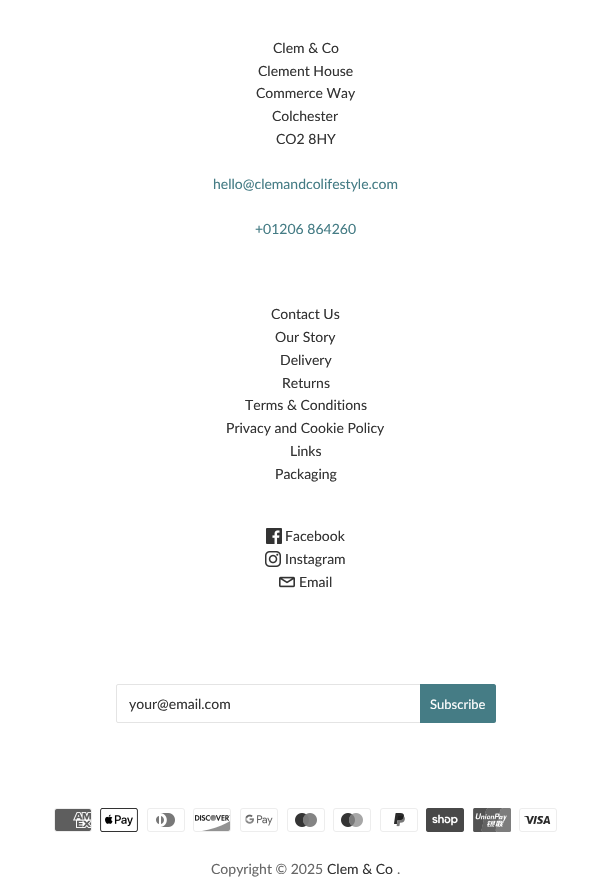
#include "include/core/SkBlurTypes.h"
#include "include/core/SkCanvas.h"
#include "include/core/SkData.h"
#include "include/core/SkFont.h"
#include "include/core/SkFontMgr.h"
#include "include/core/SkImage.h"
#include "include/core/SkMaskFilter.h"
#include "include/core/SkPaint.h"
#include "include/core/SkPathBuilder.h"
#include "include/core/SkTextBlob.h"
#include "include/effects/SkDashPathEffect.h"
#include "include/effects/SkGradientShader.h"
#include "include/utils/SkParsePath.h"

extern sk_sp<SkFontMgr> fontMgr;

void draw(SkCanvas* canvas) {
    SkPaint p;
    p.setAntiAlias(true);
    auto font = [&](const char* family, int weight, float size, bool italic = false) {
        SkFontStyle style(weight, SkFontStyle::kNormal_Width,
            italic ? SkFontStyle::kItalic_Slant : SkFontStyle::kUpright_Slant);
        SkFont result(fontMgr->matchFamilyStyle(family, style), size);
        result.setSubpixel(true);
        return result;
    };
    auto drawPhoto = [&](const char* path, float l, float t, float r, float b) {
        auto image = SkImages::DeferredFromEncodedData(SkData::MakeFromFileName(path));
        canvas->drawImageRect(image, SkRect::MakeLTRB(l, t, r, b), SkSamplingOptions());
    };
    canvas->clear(0xFFFFFFFF);
    auto font1 = font("Lato", 400, 14);
    p.setColor(0xFF333333);
    {
        const struct { const char* s; float x, y; } items[] = {
            {"Clem & Co", 273, 53},
            {"Clement House", 258, 76},
            {"Commerce Way", 256, 98},
            {"Colchester", 272, 121},
            {"CO2 8HY", 276, 144},
        };
        for (auto [s, x, y] : items) {
            canvas->drawString(s, x, y, font1, p);
        }
    }
    p.setColor(0xFF457C85);
    canvas->drawString("hello@clemandcolifestyle.com", 213, 189, font1, p);
    canvas->drawString("+01206 864260", 255, 234, font1, p);
    p.setColor(0xFF333333);
    {
        const struct { const char* s; float x, y; } items[] = {
            {"Contact Us", 271, 319},
            {"Our Story", 275, 342},
            {"Delivery", 280, 365},
            {"Returns", 282, 388},
            {"Terms & Conditions", 245, 410},
            {"Privacy and Cookie Policy", 226, 433},
            {"Links", 290, 456},
            {"Packaging", 275, 479},
        };
        for (auto [s, x, y] : items) {
            canvas->drawString(s, x, y, font1, p);
        }
    }
    drawPhoto("media/1.png", 266, 528, 282, 544);
    canvas->drawString("Facebook", 285, 541, font1, p);
    drawPhoto("media/2.png", 265, 551, 281, 567);
    canvas->drawString("Instagram", 285, 564, font1, p);
    drawPhoto("media/3.png", 279, 576, 295, 588);
    canvas->drawString("Email", 299, 587, font1, p);
    p.setStyle(SkPaint::kStroke_Style);
    p.setStrokeWidth(1);
    p.setColor(0xFFE4E4E4);
    canvas->drawRoundRect(SkRect::MakeLTRB(116.5f, 684.5f, 455.5f, 722.5f), 1.5f, 1.5f, p);
    p.setStyle(SkPaint::kFill_Style);
    p.setColor(0xFF333333);
    canvas->drawString("your@email.com", 129, 709, font1, p);
    p.setColor(0xFF457C85);
    canvas->drawPath(SkPathBuilder().moveTo(420, 684).lineTo(494, 684).cubicTo(495, 684, 496, 685, 496, 686).lineTo(496, 721).cubicTo(496, 722, 495, 723, 494, 723).lineTo(420, 723).close().detach(), p);
    auto font2 = font("Lato", 400, 13);
    p.setColor(0xFFFFFFFF);
    canvas->drawString("Subscribe", 430, 709, font2, p);
    drawPhoto("media/4.png", 54, 808, 92, 832);
    drawPhoto("media/5.png", 100, 808, 138, 832);
    drawPhoto("media/6.png", 147, 808, 185, 832);
    drawPhoto("media/7.png", 193, 808, 231, 832);
    drawPhoto("media/8.png", 240, 808, 278, 832);
    drawPhoto("media/9.png", 287, 808, 325, 832);
    drawPhoto("media/10.png", 333, 808, 371, 832);
    drawPhoto("media/11.png", 380, 808, 418, 832);
    drawPhoto("media/12.png", 426, 808, 464, 832);
    drawPhoto("media/13.png", 473, 808, 511, 832);
    drawPhoto("media/14.png", 519, 808, 557, 832);
    p.setColor(0xFF666666);
    canvas->drawString("Copyright © 2025", 211, 874, font1, p);
    p.setColor(0xFF333333);
    canvas->drawString("Clem & Co", 327, 874, font1, p);
    p.setColor(0xFF666666);
    canvas->drawString(".", 397, 874, font1, p);
}
